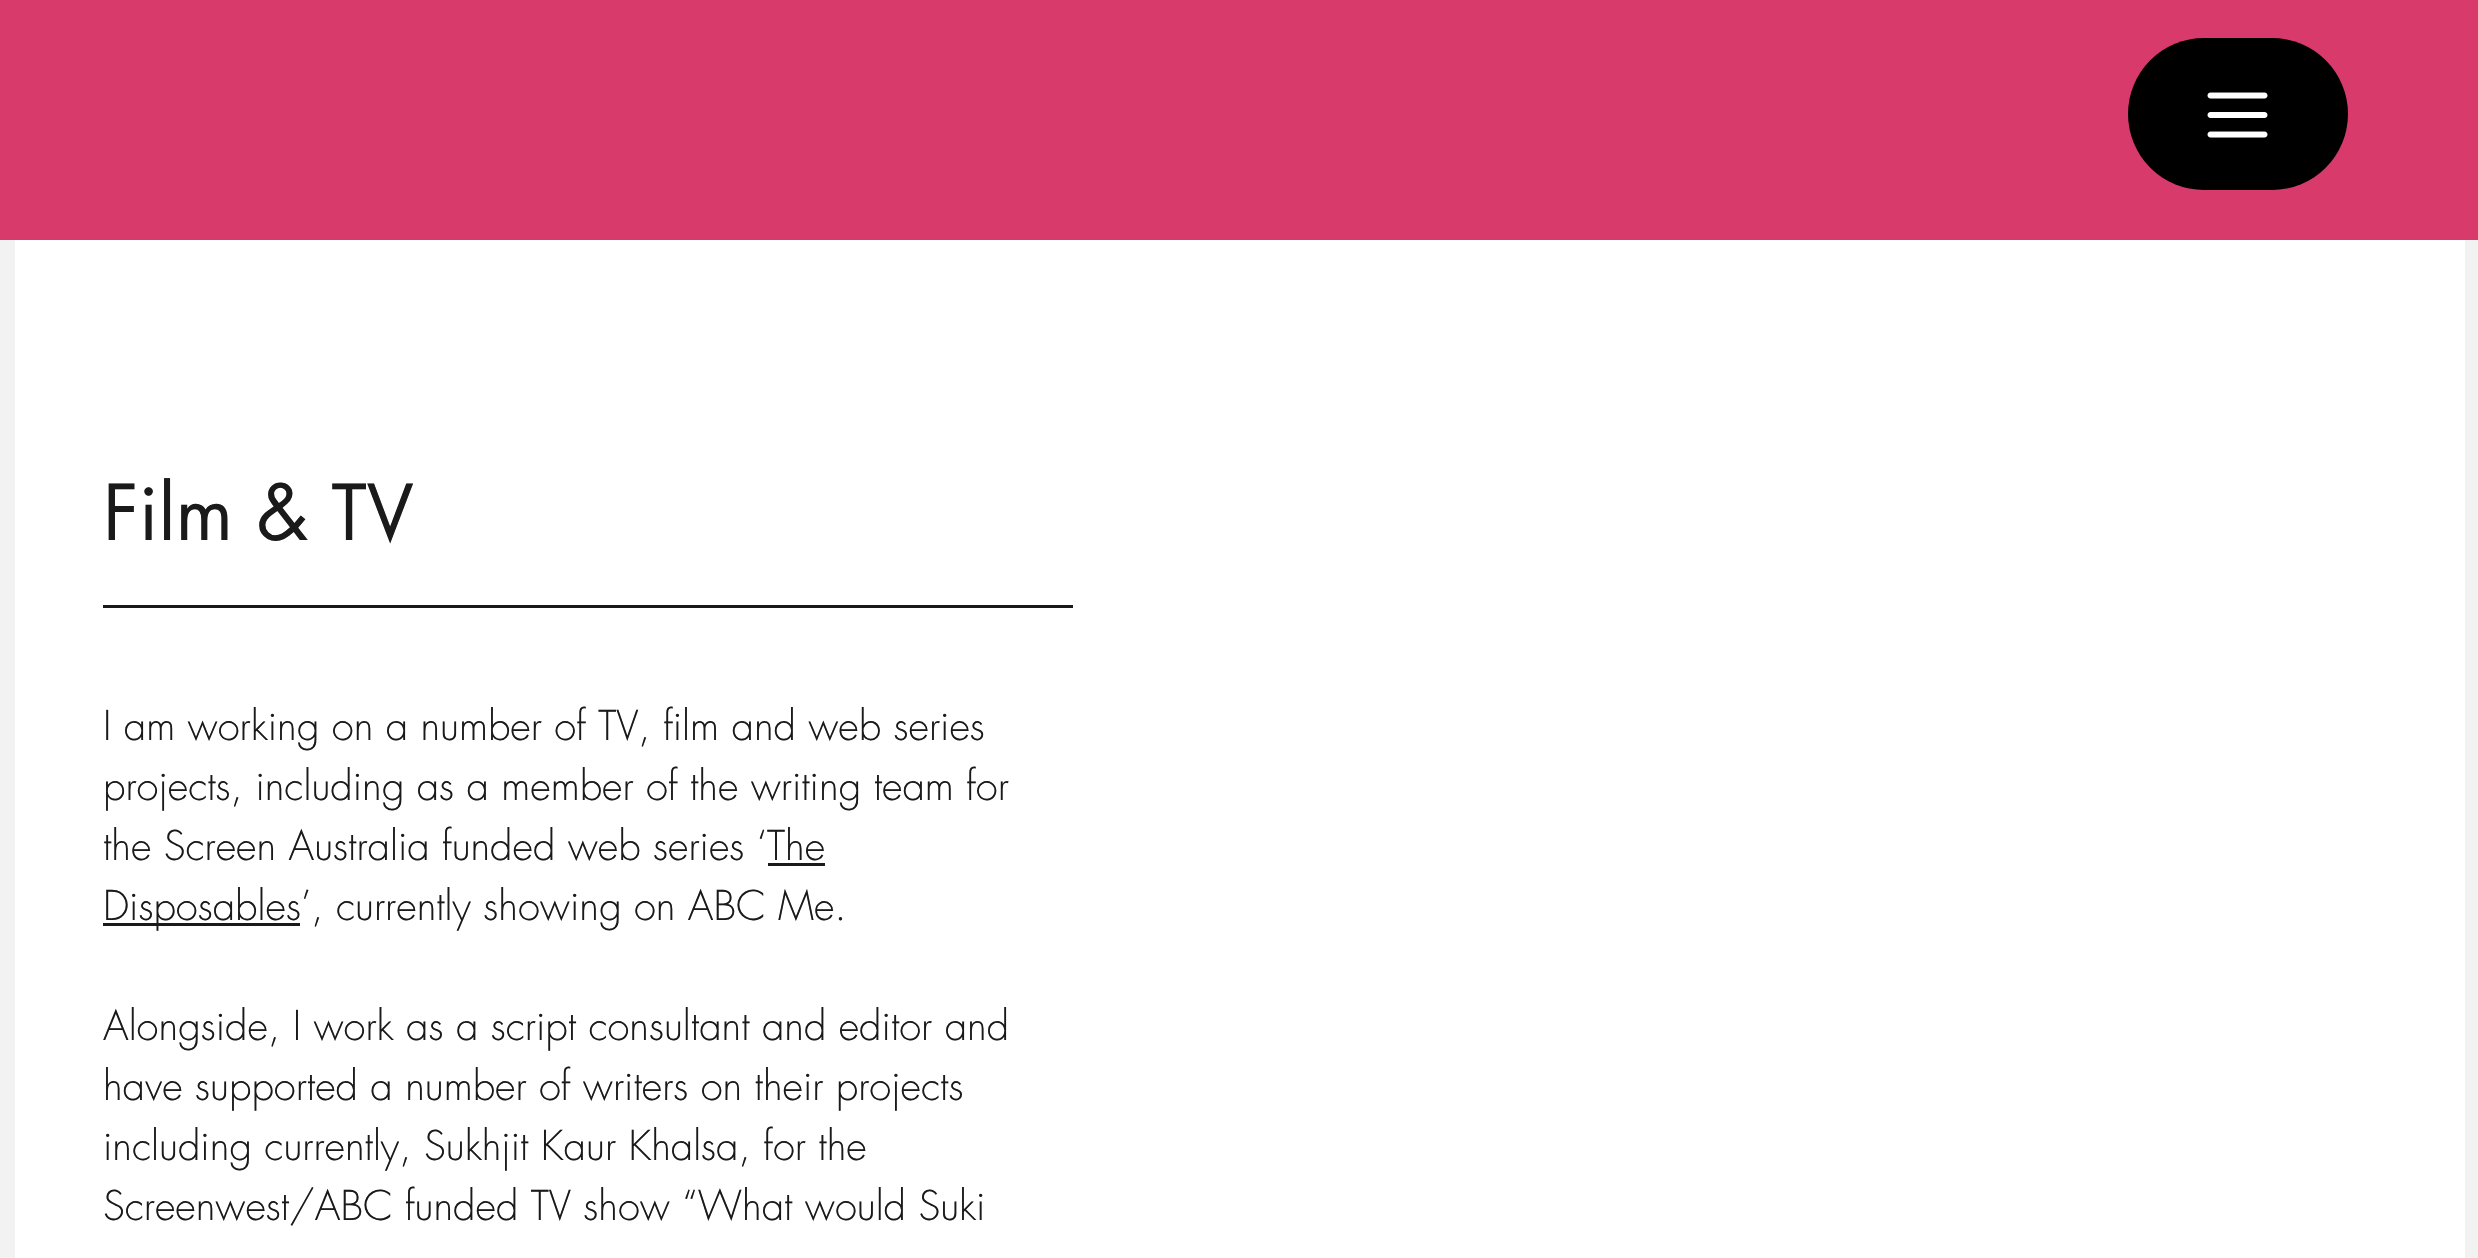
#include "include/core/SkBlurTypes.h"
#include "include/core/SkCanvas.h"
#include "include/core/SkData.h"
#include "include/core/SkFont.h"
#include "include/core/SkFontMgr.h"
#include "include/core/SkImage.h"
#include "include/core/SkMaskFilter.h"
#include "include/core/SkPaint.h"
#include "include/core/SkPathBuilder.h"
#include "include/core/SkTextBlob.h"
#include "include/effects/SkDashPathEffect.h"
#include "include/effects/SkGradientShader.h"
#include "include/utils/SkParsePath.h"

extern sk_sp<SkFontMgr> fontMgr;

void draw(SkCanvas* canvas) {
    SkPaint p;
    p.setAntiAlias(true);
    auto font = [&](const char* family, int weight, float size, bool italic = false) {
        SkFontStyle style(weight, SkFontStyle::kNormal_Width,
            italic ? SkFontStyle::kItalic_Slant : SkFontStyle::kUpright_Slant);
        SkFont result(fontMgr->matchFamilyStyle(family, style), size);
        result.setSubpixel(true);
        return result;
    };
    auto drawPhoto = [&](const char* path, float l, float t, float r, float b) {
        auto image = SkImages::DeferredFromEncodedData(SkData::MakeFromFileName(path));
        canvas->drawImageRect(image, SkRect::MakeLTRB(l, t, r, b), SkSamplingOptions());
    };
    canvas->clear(0xFFF2F2F2);
    p.setColor(0xFFD83A6B);
    canvas->drawRect(SkRect::MakeLTRB(0, 0, 2478, 240), p);
    p.setColor(0xFF000000);
    canvas->drawRoundRect(SkRect::MakeLTRB(2128, 38, 2348, 190), 76, 76, p);
    drawPhoto("media/1.png", 2207, 92, 2268, 138);
    p.setColor(0xFFFFFFFF);
    canvas->drawRect(SkRect::MakeLTRB(15, 240, 2465, 1258), p);
    auto font1 = font("futura", 400, 75);
    p.setColor(0xFF1A1A1A);
    canvas->drawString("Film & TV", 103, 540, font1, p);
    canvas->drawRect(SkRect::MakeLTRB(103, 605, 1073, 608), p);
    auto font2 = font("futura", 300, 40);
    {
        const struct { const char* s; float x, y; } items[] = {
            {"I am working on a number of TV, film and web series", 103, 740},
            {"projects, including as a member of the writing team for", 103, 800},
            {"the Screen Australia funded web series ‘The", 103, 860},
        };
        for (auto [s, x, y] : items) {
            canvas->drawString(s, x, y, font2, p);
        }
    }
    canvas->drawRect(SkRect::MakeLTRB(768, 863, 825, 866), p);
    canvas->drawRect(SkRect::MakeLTRB(103, 923, 300, 926), p);
    {
        const struct { const char* s; float x, y; } items[] = {
            {"Disposables’, currently showing on ABC Me.", 103, 920},
            {"Alongside, I work as a script consultant and editor and", 103, 1040},
            {"have supported a number of writers on their projects", 103, 1100},
            {"including currently, Sukhjit Kaur Khalsa, for the", 103, 1160},
            {"Screenwest/ABC funded TV show “What would Suki", 103, 1220},
        };
        for (auto [s, x, y] : items) {
            canvas->drawString(s, x, y, font2, p);
        }
    }
}
